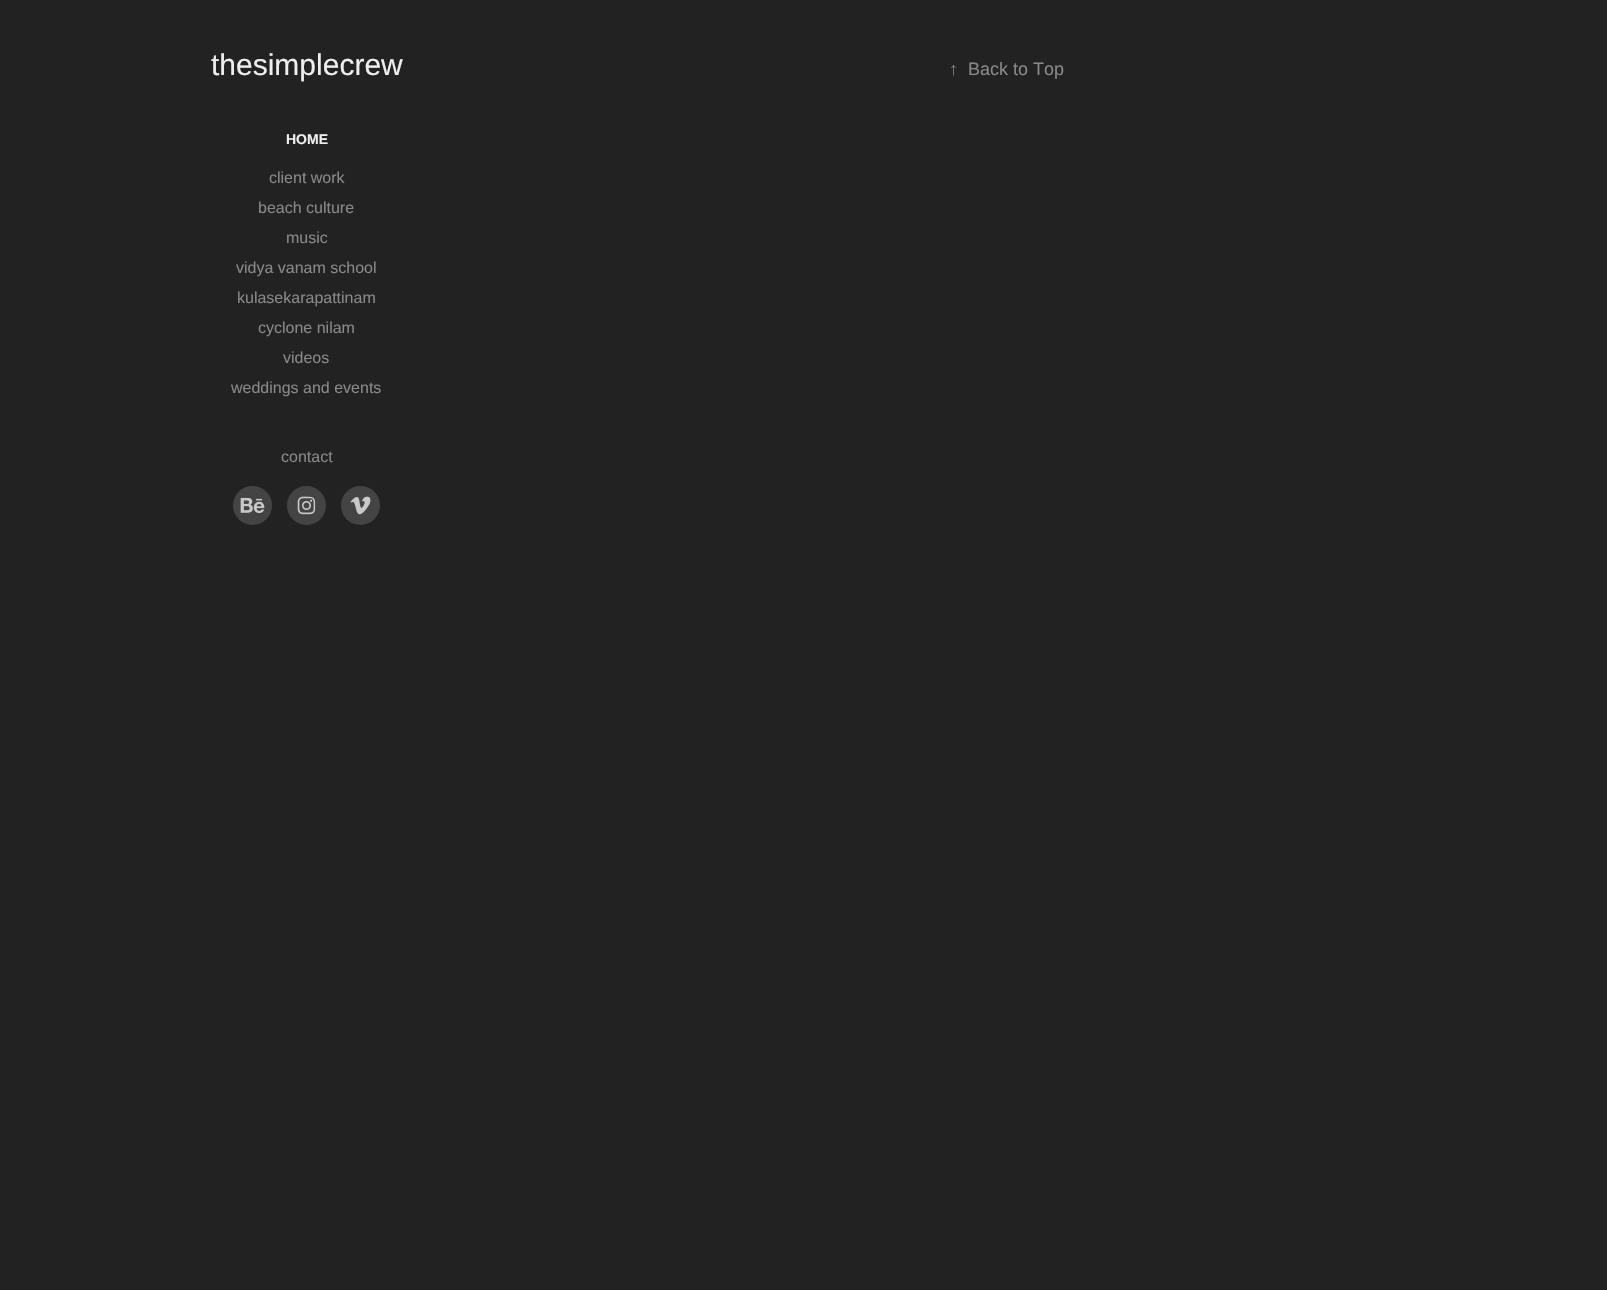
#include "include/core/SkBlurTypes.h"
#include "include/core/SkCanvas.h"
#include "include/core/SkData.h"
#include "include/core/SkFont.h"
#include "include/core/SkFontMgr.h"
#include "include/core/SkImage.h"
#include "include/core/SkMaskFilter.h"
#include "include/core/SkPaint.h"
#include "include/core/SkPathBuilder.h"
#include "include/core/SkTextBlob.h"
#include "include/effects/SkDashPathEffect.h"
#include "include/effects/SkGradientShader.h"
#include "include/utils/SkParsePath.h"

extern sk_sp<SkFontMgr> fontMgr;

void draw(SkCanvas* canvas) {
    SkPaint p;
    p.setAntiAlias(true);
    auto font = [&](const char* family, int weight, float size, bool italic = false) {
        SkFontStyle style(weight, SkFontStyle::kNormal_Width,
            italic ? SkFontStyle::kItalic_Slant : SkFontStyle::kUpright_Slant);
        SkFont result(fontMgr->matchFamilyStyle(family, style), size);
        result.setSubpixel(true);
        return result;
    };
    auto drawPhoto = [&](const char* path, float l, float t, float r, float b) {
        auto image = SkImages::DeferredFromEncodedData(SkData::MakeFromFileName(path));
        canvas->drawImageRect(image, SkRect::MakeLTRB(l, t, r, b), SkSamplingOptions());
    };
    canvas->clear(0xFF222222);
    auto font1 = font("Liberation Sans", 400, 30);
    p.setColor(0xFFEEEEEE);
    canvas->drawString("thesimplecrew", 211, 75, font1, p);
    auto font2 = font("Liberation Sans", 700, 14);
    canvas->drawString("HOME", 286, 144, font2, p);
    auto font3 = font("Liberation Sans", 400, 16);
    p.setColor(0xFF888888);
    {
        const struct { const char* s; float x, y; } items[] = {
            {"client work", 269, 183},
            {"beach culture", 258, 213},
            {"music", 286, 243},
            {"vidya vanam school", 236, 273},
            {"kulasekarapattinam", 237, 303},
            {"cyclone nilam", 258, 333},
            {"videos", 283, 363},
            {"weddings and events", 231, 393},
            {"contact", 281, 462},
        };
        for (auto [s, x, y] : items) {
            canvas->drawString(s, x, y, font3, p);
        }
    }
    p.setColor(0xFF444444);
    canvas->drawCircle(252.5f, 505.5f, 19.5f, p);
    drawPhoto("media/1.png", 240, 497, 265, 514);
    canvas->drawCircle(306.5f, 505.5f, 19.5f, p);
    drawPhoto("media/2.png", 297, 496, 316, 515);
    canvas->drawCircle(360.5f, 505.5f, 19.5f, p);
    drawPhoto("media/3.png", 350, 496, 371, 515);
    auto font4 = font("Liberation Sans", 400, 18);
    p.setColor(0xFF888888);
    canvas->drawString("↑", 949, 75, font4, p);
    canvas->drawString("Back to Top", 968, 75, font4, p);
}
